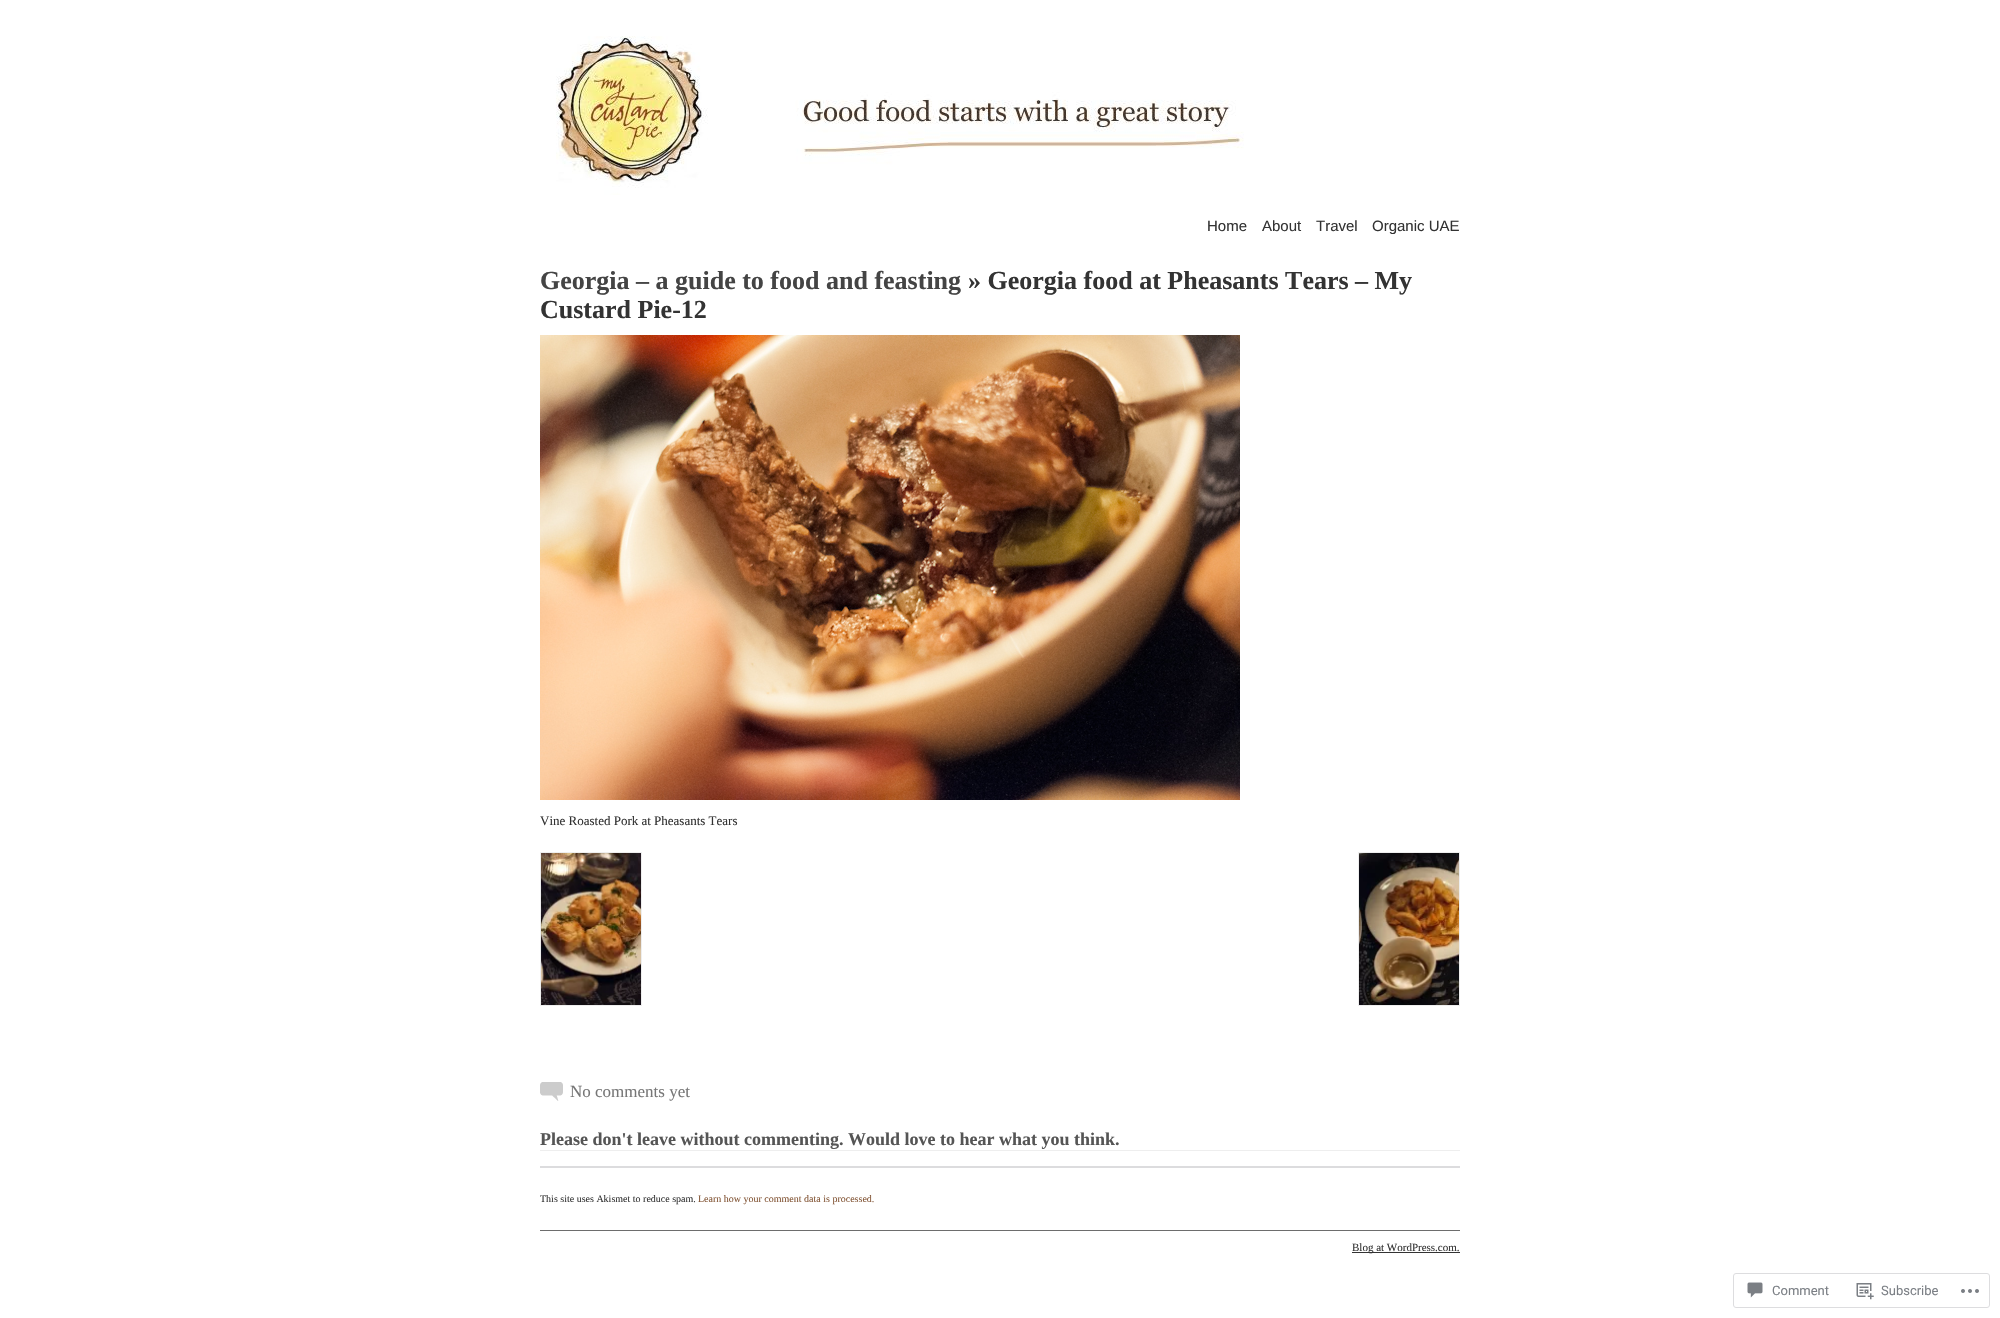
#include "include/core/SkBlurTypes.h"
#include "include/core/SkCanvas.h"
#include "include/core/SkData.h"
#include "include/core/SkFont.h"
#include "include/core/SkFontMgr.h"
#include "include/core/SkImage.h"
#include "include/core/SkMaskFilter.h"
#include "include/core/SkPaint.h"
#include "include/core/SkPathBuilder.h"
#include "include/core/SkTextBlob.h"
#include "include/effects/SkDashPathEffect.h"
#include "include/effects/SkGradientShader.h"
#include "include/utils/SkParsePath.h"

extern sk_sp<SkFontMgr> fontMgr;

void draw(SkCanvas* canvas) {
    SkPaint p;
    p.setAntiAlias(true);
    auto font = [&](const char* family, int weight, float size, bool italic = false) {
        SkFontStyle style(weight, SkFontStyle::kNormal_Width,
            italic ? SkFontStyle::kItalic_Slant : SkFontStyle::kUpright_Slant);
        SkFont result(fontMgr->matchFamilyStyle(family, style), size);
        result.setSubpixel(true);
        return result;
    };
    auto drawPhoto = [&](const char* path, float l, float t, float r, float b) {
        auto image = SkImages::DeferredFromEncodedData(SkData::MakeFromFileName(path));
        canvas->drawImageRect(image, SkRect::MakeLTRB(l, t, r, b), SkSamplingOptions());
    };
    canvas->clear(0xFFFFFFFF);
    drawPhoto("media/1.png", 556, 36, 1244, 195);
    auto font1 = font("Liberation Sans", 400, 15);
    p.setColor(0xFF333333);
    {
        const struct { const char* s; float x, y; } items[] = {
            {"Home", 1207, 231},
            {"About", 1262, 231},
            {"Travel", 1316, 231},
            {"Organic UAE", 1372, 231},
        };
        for (auto [s, x, y] : items) {
            canvas->drawString(s, x, y, font1, p);
        }
    }
    auto font2 = font("Liberation Serif", 700, 26);
    p.setColor(0xFF444444);
    canvas->drawString("Georgia – a guide to food and feasting", 540, 289, font2, p);
    p.setColor(0xFF333333);
    canvas->drawString("» Georgia food at Pheasants Tears – My", 968, 289, font2, p);
    canvas->drawString("Custard Pie-12", 540, 318, font2, p);
    drawPhoto("media/2.png", 540, 335, 1240, 800);
    auto font3 = font("Liberation Serif", 400, 13);
    canvas->drawString("Vine Roasted Pork at Pheasants Tears", 540, 825, font3, p);
    p.setStyle(SkPaint::kStroke_Style);
    p.setStrokeWidth(1);
    p.setColor(0xFFEEEEEE);
    canvas->drawRect(SkRect::MakeLTRB(540.5f, 852.5f, 641.5f, 1005.5f), p);
    drawPhoto("media/3.png", 541, 853, 641, 1005);
    canvas->drawRect(SkRect::MakeLTRB(1358.5f, 852.5f, 1459.5f, 1005.5f), p);
    drawPhoto("media/4.png", 1359, 853, 1459, 1005);
    drawPhoto("media/5.png", 540, 1082, 563, 1101);
    auto font4 = font("Liberation Serif", 400, 17);
    p.setStyle(SkPaint::kFill_Style);
    p.setColor(0xFF777777);
    canvas->drawString("No comments yet", 570, 1097, font4, p);
    p.setColor(0xFFEEEEEE);
    canvas->drawRect(SkRect::MakeLTRB(540, 1150, 1460, 1151), p);
    auto font5 = font("Liberation Serif", 700, 18);
    p.setColor(0xFF555555);
    canvas->drawString("Please don't leave without commenting. Would love to hear what you think.", 540, 1145, font5, p);
    p.setColor(0xFFDCDCDE);
    canvas->drawRect(SkRect::MakeLTRB(540, 1166, 1460, 1168), p);
    auto font6 = font("Liberation Serif", 400, 10);
    p.setColor(0xFF333333);
    canvas->drawString("This site uses Akismet to reduce spam.", 540, 1202, font6, p);
    p.setColor(0xFF825434);
    canvas->drawString("Learn how your comment data is processed.", 698, 1202, font6, p);
    p.setColor(0xFF6D6D6D);
    canvas->drawRect(SkRect::MakeLTRB(540, 1230, 1460, 1231), p);
    p.setColor(0xFF333333);
    canvas->drawRect(SkRect::MakeLTRB(1352, 1252, 1460, 1253), p);
    auto font7 = font("Liberation Serif", 400, 11);
    canvas->drawString("Blog at WordPress.com.", 1352, 1251, font7, p);
    p.setStyle(SkPaint::kStroke_Style);
    p.setColor(0xFFDDDDDF);
    canvas->drawRoundRect(SkRect::MakeLTRB(1733.5f, 1273.5f, 1989.5f, 1307.5f), 2.5f, 2.5f, p);
    drawPhoto("media/6.png", 1747, 1282, 1763, 1298);
    auto font8 = font("Roboto", 400, 13);
    p.setStyle(SkPaint::kFill_Style);
    p.setColor(0xFF7B7F85);
    canvas->drawString("Comment", 1772, 1295, font8, p);
    drawPhoto("media/7.png", 1856, 1283, 1874, 1300);
    canvas->drawString("Subscribe", 1881, 1295, font8, p);
    drawPhoto("media/8.png", 1961, 1289, 1979, 1293);
}
